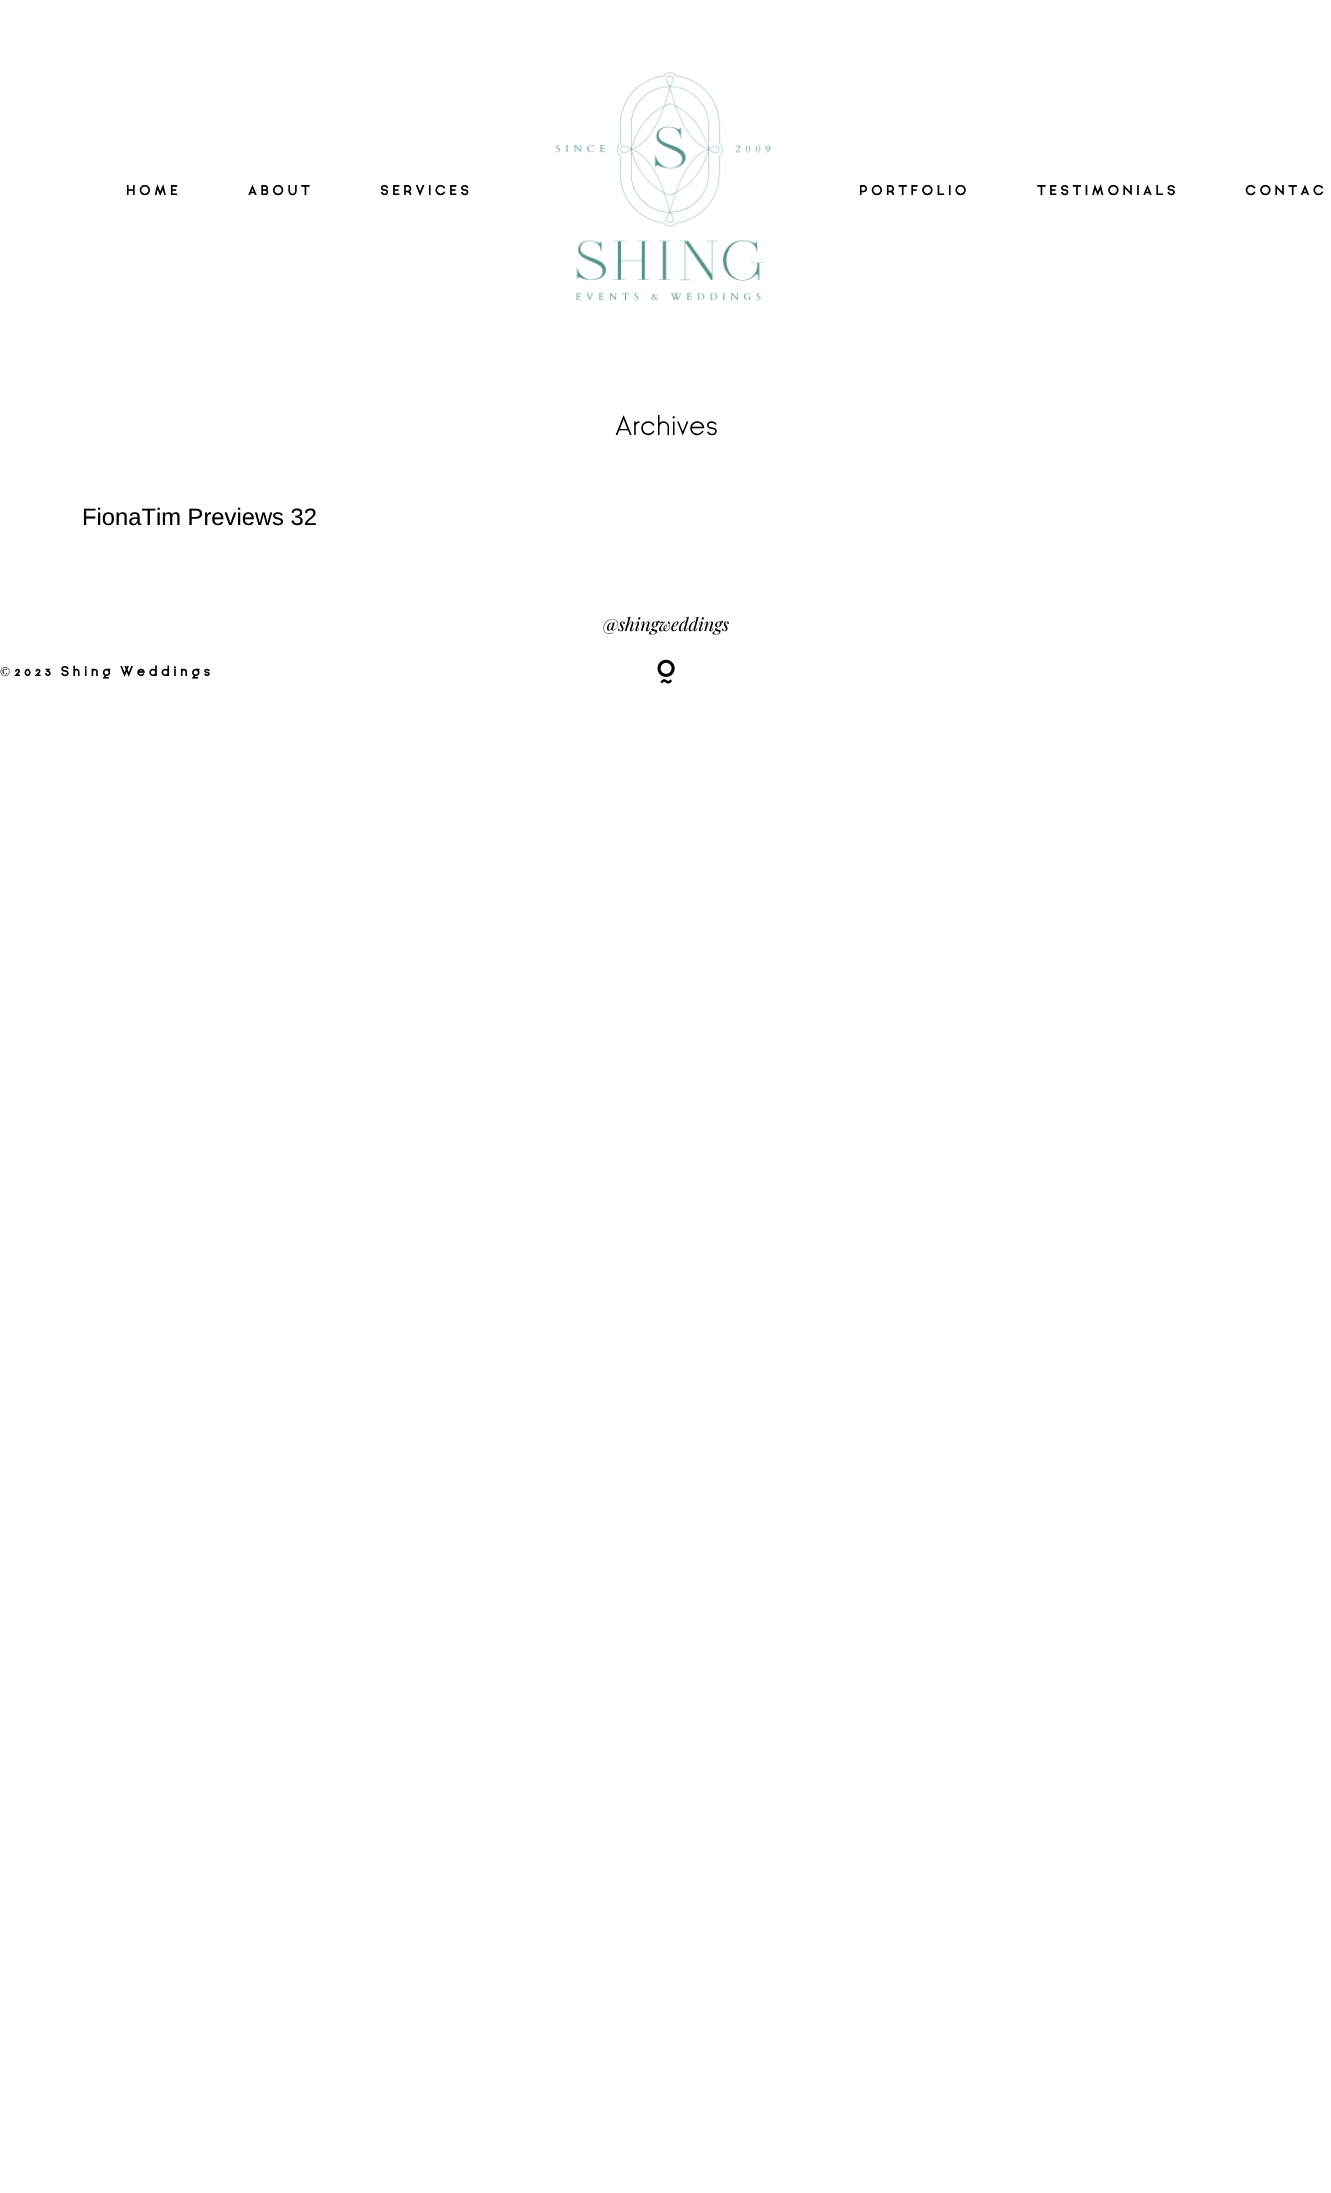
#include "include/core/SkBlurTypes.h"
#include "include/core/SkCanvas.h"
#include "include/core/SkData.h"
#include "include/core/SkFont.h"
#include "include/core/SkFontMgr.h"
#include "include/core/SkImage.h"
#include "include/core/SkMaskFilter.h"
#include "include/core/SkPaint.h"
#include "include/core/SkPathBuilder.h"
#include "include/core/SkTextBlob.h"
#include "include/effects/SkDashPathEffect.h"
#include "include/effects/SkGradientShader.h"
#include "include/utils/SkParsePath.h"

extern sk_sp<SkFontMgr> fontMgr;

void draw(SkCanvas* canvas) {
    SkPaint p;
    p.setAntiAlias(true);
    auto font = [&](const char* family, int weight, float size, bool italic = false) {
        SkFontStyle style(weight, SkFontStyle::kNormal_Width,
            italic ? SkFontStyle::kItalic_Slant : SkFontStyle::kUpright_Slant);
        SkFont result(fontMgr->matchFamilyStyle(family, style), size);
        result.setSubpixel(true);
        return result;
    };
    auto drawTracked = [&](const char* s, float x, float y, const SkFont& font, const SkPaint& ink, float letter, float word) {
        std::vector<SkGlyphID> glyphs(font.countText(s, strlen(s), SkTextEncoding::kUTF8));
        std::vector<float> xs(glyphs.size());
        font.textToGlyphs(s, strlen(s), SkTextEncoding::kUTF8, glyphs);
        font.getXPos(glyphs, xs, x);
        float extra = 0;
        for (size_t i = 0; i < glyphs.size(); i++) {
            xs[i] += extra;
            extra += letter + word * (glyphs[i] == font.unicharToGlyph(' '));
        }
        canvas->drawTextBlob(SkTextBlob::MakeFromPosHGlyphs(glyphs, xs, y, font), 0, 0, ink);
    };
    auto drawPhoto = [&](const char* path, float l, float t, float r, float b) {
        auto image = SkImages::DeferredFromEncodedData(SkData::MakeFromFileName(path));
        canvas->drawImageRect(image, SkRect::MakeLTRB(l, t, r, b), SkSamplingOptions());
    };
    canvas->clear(0xFFFFFFFF);
    auto font1 = font("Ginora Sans", 700, 13.4f);
    p.setColor(0xFF000000);
    {
        const struct { const char* s; float x, y; } items[] = {
            {"HOME", 126, 195},
            {"ABOUT", 248, 195},
            {"SERVICES", 380, 195},
        };
        for (auto [s, x, y] : items) {
            drawTracked(s, x, y, font1, p, 3.4f, 0);
        }
    }
    drawPhoto("media/1.png", 555, 71, 771, 301);
    {
        const struct { const char* s; float x, y; } items[] = {
            {"PORTFOLIO", 859, 195},
            {"TESTIMONIALS", 1037, 195},
            {"CONTAC", 1245, 195},
        };
        for (auto [s, x, y] : items) {
            drawTracked(s, x, y, font1, p, 3.4f, 0);
        }
    }
    auto font2 = font("Ginora Sans", 300, 28.5f);
    canvas->drawString("Archives", 615, 435, font2, p);
    auto font3 = font("Liberation Sans", 400, 23.75f);
    canvas->drawString("FionaTim Previews 32", 82, 525, font3, p);
    auto font4 = font("Playfair Display", 400, 18, true);
    canvas->drawString("@shingweddings", 603, 631, font4, p);
    auto font5 = font("Liberation Serif", 400, 13.4f);
    drawTracked("©", 0, 676, font5, p, 3.4f, 0);
    drawTracked("2023 Shing Weddings", 14, 676, font1, p, 3.4f, 0);
    drawPhoto("media/2.png", 657, 659, 675, 684);
}
